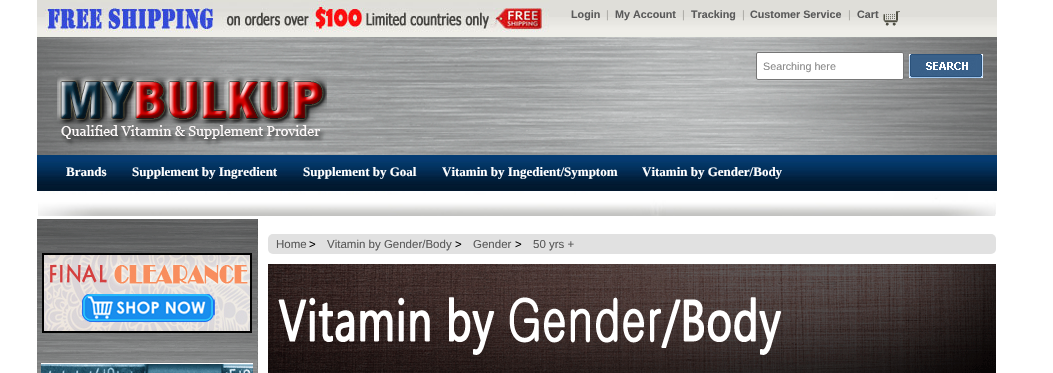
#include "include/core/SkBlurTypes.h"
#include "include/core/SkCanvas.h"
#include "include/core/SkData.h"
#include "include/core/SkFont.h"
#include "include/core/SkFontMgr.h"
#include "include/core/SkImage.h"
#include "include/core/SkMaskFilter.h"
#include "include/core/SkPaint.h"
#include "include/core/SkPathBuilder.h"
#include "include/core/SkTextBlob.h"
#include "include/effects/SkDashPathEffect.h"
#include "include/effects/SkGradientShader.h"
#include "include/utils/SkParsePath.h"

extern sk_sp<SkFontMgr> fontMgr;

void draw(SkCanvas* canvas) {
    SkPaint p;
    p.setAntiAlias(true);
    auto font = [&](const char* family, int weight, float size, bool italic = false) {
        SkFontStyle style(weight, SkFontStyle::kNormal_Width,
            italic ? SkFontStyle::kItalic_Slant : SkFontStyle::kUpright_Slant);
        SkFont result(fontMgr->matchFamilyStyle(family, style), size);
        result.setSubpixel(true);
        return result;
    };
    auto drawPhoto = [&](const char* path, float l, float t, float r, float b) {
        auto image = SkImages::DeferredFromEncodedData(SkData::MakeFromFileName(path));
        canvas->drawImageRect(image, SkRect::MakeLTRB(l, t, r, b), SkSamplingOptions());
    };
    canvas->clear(0xFFFFFFFF);
    drawPhoto("media/1.png", 37, 37, 997, 155);
    p.setColor(0xFFDFDED9);
    canvas->drawRect(SkRect::MakeLTRB(37, 0, 997, 17), p);
    drawPhoto("media/2.png", 37, 17, 997, 37);
    drawPhoto("media/3.png", 45, 0, 549, 32);
    auto font1 = font("Liberation Sans", 700, 10.75f);
    p.setColor(0xFF5A5A5A);
    canvas->drawString("Login", 571, 18, font1, p);
    auto font2 = font("Liberation Sans", 400, 10.75f);
    p.setColor(0xFFA9A8A3);
    canvas->drawString("|", 606, 18, font2, p);
    p.setColor(0xFF5A5A5A);
    canvas->drawString("My Account", 615, 18, font1, p);
    p.setColor(0xFFA9A8A3);
    canvas->drawString("|", 682, 18, font2, p);
    p.setColor(0xFF5A5A5A);
    canvas->drawString("Tracking", 691, 18, font1, p);
    p.setColor(0xFFA9A8A3);
    canvas->drawString("|", 742, 18, font2, p);
    p.setColor(0xFF5A5A5A);
    canvas->drawString("Customer Service", 750, 18, font1, p);
    p.setColor(0xFFA9A8A3);
    canvas->drawString("|", 848, 18, font2, p);
    p.setColor(0xFF5A5A5A);
    canvas->drawString("Cart", 857, 18, font1, p);
    drawPhoto("media/4.png", 883, 11, 900, 26);
    p.setColor(0xFFFFFFFF);
    canvas->drawRoundRect(SkRect::MakeLTRB(756.5f, 52.5f, 903.5f, 79.5f), 1.5f, 1.5f, p);
    p.setStyle(SkPaint::kStroke_Style);
    p.setStrokeWidth(1);
    p.setColor(0xFF767676);
    canvas->drawRoundRect(SkRect::MakeLTRB(756.5f, 52.5f, 903.5f, 79.5f), 1.5f, 1.5f, p);
    p.setStyle(SkPaint::kFill_Style);
    p.setColor(0xFF888888);
    canvas->drawString("Searching here", 763, 70, font2, p);
    drawPhoto("media/5.png", 909, 54, 983, 78);
    drawPhoto("media/6.png", 57, 73, 327, 146);
    drawPhoto("media/7.png", 37, 155, 997, 191);
    auto font3 = font("Liberation Serif", 700, 13);
    p.setColor(0xFFFFFFFF);
    {
        const struct { const char* s; float x, y; } items[] = {
            {"Brands", 66, 176},
            {"Supplement by Ingredient", 132, 176},
            {"Supplement by Goal", 303, 176},
            {"Vitamin by Ingedient/Symptom", 442, 176},
            {"Vitamin by Gender/Body", 642, 176},
        };
        for (auto [s, x, y] : items) {
            canvas->drawString(s, x, y, font3, p);
        }
    }
    drawPhoto("media/8.png", 38, 191, 996, 216);
    drawPhoto("media/9.png", 37, 219, 258, 373);
    drawPhoto("media/10.png", 42, 253, 252, 333);
    drawPhoto("media/11.png", 41, 363, 253, 373);
    p.setColor(0xFFE1E1E1);
    canvas->drawRoundRect(SkRect::MakeLTRB(268, 234, 996, 254), 5, 5, p);
    auto font4 = font("Liberation Sans", 400, 11.5f);
    p.setColor(0xFF5A5A5A);
    canvas->drawString("Home", 276, 248, font4, p);
    p.setColor(0xFF000000);
    canvas->drawString(">", 309, 248, font4, p);
    p.setColor(0xFF5A5A5A);
    canvas->drawString("Vitamin by Gender/Body", 327, 248, font4, p);
    p.setColor(0xFF000000);
    canvas->drawString(">", 455, 248, font4, p);
    p.setColor(0xFF5A5A5A);
    canvas->drawString("Gender", 473, 248, font4, p);
    p.setColor(0xFF000000);
    canvas->drawString(">", 515, 248, font4, p);
    p.setColor(0xFF5A5A5A);
    canvas->drawString("50 yrs +", 533, 248, font4, p);
    drawPhoto("media/12.png", 268, 264, 996, 373);
}
